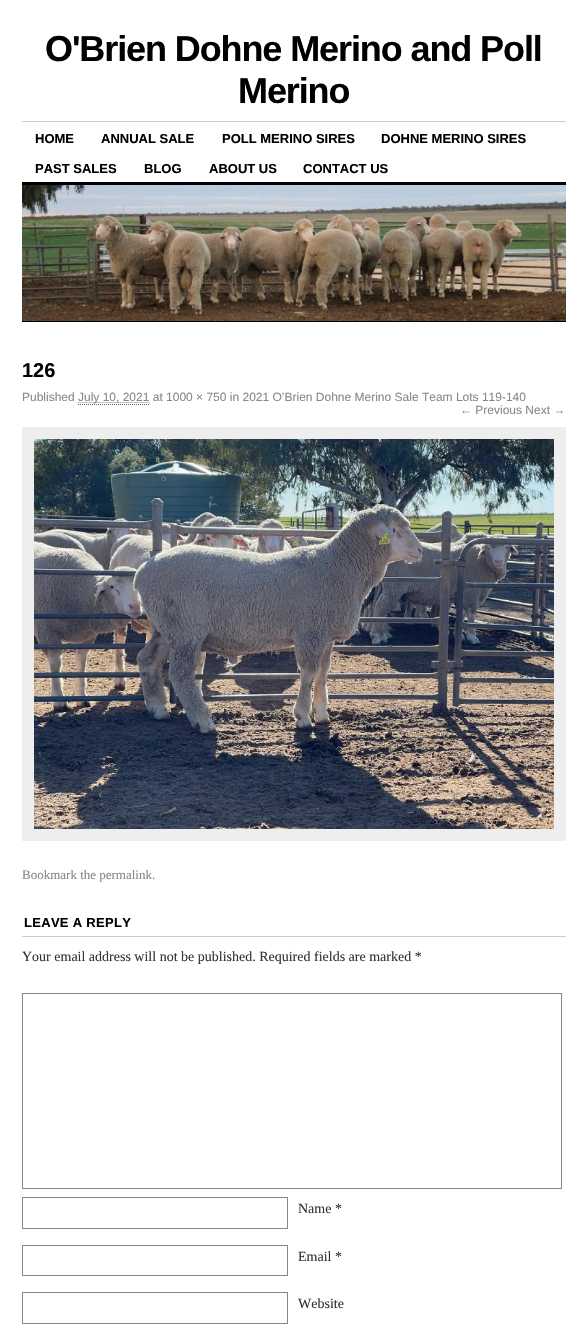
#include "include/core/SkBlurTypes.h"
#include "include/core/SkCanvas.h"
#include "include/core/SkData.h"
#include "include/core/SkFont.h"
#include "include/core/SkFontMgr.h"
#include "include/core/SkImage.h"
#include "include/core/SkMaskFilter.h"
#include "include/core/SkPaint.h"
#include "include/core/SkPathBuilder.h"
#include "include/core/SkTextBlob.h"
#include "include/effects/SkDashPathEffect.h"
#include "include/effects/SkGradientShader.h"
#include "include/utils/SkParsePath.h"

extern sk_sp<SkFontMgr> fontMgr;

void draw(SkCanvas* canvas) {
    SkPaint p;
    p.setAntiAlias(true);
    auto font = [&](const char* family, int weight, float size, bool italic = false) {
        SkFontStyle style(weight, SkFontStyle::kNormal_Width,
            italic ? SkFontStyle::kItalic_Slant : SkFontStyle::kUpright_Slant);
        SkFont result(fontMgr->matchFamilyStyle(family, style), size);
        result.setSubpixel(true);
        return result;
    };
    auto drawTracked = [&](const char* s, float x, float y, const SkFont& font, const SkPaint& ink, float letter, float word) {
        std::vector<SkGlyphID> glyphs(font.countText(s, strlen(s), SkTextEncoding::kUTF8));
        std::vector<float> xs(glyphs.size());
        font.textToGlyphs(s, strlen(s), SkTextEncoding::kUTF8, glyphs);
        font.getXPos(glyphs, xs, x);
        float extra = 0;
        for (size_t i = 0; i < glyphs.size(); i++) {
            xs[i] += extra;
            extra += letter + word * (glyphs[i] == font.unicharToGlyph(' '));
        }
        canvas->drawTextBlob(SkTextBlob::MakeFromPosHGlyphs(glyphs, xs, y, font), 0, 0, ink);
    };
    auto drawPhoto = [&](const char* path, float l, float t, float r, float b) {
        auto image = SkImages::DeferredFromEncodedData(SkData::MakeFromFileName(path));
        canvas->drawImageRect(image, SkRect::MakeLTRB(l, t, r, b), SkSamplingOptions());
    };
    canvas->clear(0xFFFFFFFF);
    auto font1 = font("Liberation Sans", 700, 36);
    p.setColor(0xFF000000);
    drawTracked("O'Brien Dohne Merino and Poll", 45, 61, font1, p, -1.1f, 0);
    drawTracked("Merino", 238, 103, font1, p, -1.1f, 0);
    p.setColor(0xFFCCCCCC);
    canvas->drawRect(SkRect::MakeLTRB(22, 121, 566, 122), p);
    auto font2 = font("Liberation Sans", 700, 13);
    p.setColor(0xFF000000);
    {
        const struct { const char* s; float x, y; } items[] = {
            {"HOME", 35, 143},
            {"ANNUAL SALE", 101, 143},
            {"POLL MERINO SIRES", 222, 143},
            {"DOHNE MERINO SIRES", 381, 143},
            {"PAST SALES", 35, 173},
            {"BLOG", 144, 173},
            {"ABOUT US", 209, 173},
            {"CONTACT US", 303, 173},
        };
        for (auto [s, x, y] : items) {
            canvas->drawString(s, x, y, font2, p);
        }
    }
    canvas->drawRect(SkRect::MakeLTRB(22, 182, 566, 185), p);
    drawPhoto("media/1.png", 22, 185, 566, 321);
    canvas->drawRect(SkRect::MakeLTRB(22, 321, 566, 322), p);
    auto font3 = font("Liberation Sans", 700, 20);
    canvas->drawString("126", 22, 377, font3, p);
    auto font4 = font("Liberation Sans", 400, 12);
    p.setColor(0xFF888888);
    canvas->drawString("Published", 22, 401, font4, p);
    p.setStyle(SkPaint::kStroke_Style);
    p.setStrokeWidth(1);
    p.setPathEffect(SkDashPathEffect::Make({{1, 1}}, 0));
    canvas->drawPath(SkPathBuilder().moveTo(78.5f, 402.5f).lineTo(150, 402.5f).detach(), p);
    p.setPathEffect(nullptr);
    p.setStyle(SkPaint::kFill_Style);
    canvas->drawString("July 10, 2021 at 1000 × 750 in 2021 O’Brien Dohne Merino Sale Team Lots 119-140", 78, 401, font4, p);
    p.setStyle(SkPaint::kStroke_Style);
    p.setColor(0xFF666666);
    p.setPathEffect(SkDashPathEffect::Make({{1, 1}}, 0));
    canvas->drawPath(SkPathBuilder().moveTo(78, 404.5f).lineTo(150, 404.5f).detach(), p);
    p.setPathEffect(nullptr);
    p.setStyle(SkPaint::kFill_Style);
    p.setColor(0xFF888888);
    canvas->drawString("← Previous Next →", 460, 414, font4, p);
    p.setColor(0xFFEEEEEE);
    canvas->drawRect(SkRect::MakeLTRB(22, 427, 566, 841), p);
    drawPhoto("media/2.png", 34, 439, 554, 829);
    auto font5 = font("Liberation Serif", 400, 13);
    p.setColor(0xFF888888);
    canvas->drawString("Bookmark the permalink.", 22, 879, font5, p);
    p.setColor(0xFFCCCCCC);
    canvas->drawRect(SkRect::MakeLTRB(22, 936, 566, 937), p);
    p.setColor(0xFF000000);
    drawTracked("LEAVE A REPLY", 24, 927, font2, p, 0.3f, 0);
    auto font6 = font("Liberation Serif", 400, 14);
    p.setColor(0xFF333333);
    canvas->drawString("Your email address will not be published. Required fields are marked *", 22, 961, font6, p);
    p.setStyle(SkPaint::kStroke_Style);
    p.setColor(0xFF888888);
    canvas->drawRect(SkRect::MakeLTRB(22.5f, 993.5f, 561.5f, 1188.5f), p);
    canvas->drawRect(SkRect::MakeLTRB(22.5f, 1197.5f, 287.5f, 1228.5f), p);
    p.setStyle(SkPaint::kFill_Style);
    p.setColor(0xFF333333);
    canvas->drawString("Name *", 298, 1213, font6, p);
    p.setStyle(SkPaint::kStroke_Style);
    p.setColor(0xFF888888);
    canvas->drawRect(SkRect::MakeLTRB(22.5f, 1245.5f, 287.5f, 1275.5f), p);
    p.setStyle(SkPaint::kFill_Style);
    p.setColor(0xFF333333);
    canvas->drawString("Email *", 298, 1261, font6, p);
    p.setStyle(SkPaint::kStroke_Style);
    p.setColor(0xFF888888);
    canvas->drawRect(SkRect::MakeLTRB(22.5f, 1292.5f, 287.5f, 1323.5f), p);
    p.setStyle(SkPaint::kFill_Style);
    p.setColor(0xFF333333);
    canvas->drawString("Website", 298, 1308, font6, p);
}
